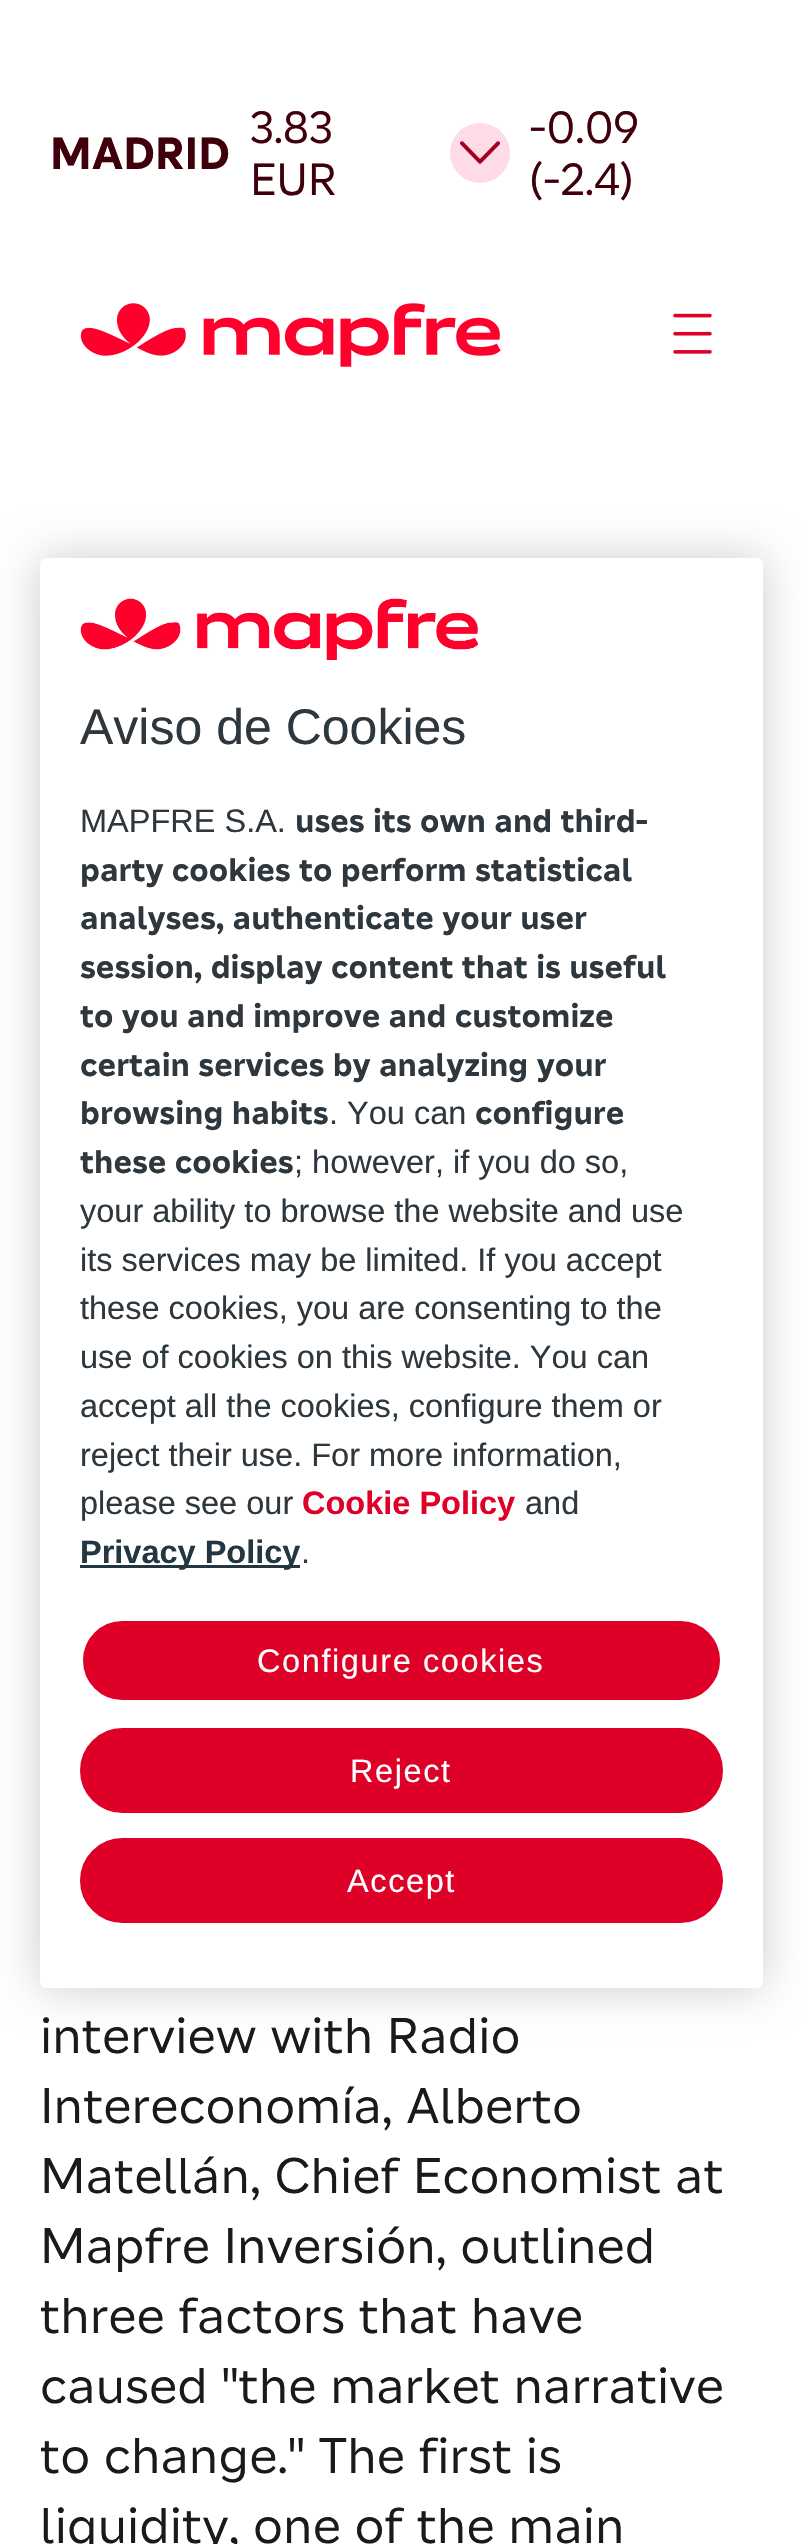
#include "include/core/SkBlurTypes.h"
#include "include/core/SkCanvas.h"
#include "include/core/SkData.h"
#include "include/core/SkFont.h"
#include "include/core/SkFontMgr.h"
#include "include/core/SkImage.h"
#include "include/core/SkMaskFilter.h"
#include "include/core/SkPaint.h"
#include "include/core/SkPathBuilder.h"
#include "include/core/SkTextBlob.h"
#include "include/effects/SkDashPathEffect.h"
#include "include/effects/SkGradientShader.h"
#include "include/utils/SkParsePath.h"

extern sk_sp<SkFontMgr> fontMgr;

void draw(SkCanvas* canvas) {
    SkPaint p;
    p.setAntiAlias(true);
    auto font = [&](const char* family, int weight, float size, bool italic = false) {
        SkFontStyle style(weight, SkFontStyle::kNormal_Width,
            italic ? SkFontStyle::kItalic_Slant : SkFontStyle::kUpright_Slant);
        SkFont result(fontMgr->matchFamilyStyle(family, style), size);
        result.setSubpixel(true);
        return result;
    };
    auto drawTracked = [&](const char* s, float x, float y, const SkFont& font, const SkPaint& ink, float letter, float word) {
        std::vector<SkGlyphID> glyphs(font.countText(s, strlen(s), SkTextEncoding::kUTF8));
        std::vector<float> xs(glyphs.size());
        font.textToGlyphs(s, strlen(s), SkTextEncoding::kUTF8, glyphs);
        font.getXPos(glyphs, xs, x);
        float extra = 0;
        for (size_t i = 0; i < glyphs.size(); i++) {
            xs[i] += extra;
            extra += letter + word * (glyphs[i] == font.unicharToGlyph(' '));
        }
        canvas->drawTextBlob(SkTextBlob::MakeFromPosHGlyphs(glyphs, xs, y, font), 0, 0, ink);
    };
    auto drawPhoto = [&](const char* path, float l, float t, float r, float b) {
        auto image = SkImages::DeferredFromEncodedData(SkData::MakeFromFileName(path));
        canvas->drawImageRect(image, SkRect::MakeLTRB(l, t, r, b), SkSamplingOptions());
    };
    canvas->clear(0xFFFFFFFF);
    auto font1 = font("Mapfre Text", 700, 45);
    p.setColor(0xFF40000B);
    canvas->drawString("MADRID", 50, 169, font1, p);
    auto font2 = font("Mapfre Text", 400, 45);
    canvas->drawString("3.83", 250, 143, font2, p);
    canvas->drawString("EUR", 250, 195, font2, p);
    p.setColor(0xFFFFDBEA);
    canvas->drawCircle(480, 153, 30, p);
    drawPhoto("media/1.png", 460, 141, 500, 164);
    p.setColor(0xFF40000B);
    canvas->drawString("-0.09", 529, 143, font2, p);
    canvas->drawString("(-2.4)", 529, 195, font2, p);
    drawPhoto("media/2.png", 80, 303, 501, 367);
    drawPhoto("media/3.png", 673, 313, 712, 354);
    p.setColor(0x33000000);
    p.setMaskFilter(SkMaskFilter::MakeBlur(kNormal_SkBlurStyle, 22.5f));
    canvas->drawRoundRect(SkRect::MakeLTRB(40, 558, 763, 1988), 6, 6, p);
    p.setMaskFilter(nullptr);
    p.setColor(0xFFFFFFFF);
    canvas->drawRoundRect(SkRect::MakeLTRB(40, 558, 763, 1988), 6, 6, p);
    drawPhoto("media/4.png", 80, 598, 479, 661);
    auto font3 = font("Liberation Sans", 400, 50);
    p.setColor(0xFF2D373D);
    canvas->drawString("Aviso de Cookies", 80, 744, font3, p);
    auto font4 = font("Liberation Sans", 400, 32.5f);
    canvas->drawString("MAPFRE S.A.", 80, 832, font4, p);
    auto font5 = font("Mapfre Text", 700, 32.5f);
    {
        const struct { const char* s; float x, y; } items[] = {
            {"uses its own and third-", 295, 832},
            {"party cookies to perform statistical", 80, 881},
            {"analyses, authenticate your user", 80, 929},
            {"session, display content that is useful", 80, 978},
            {"to you and improve and customize", 80, 1027},
            {"certain services by analyzing your", 80, 1076},
            {"browsing habits", 80, 1124},
        };
        for (auto [s, x, y] : items) {
            canvas->drawString(s, x, y, font5, p);
        }
    }
    canvas->drawString(". You can", 329, 1124, font4, p);
    canvas->drawString("configure", 475, 1124, font5, p);
    canvas->drawString("these cookies", 80, 1173, font5, p);
    {
        const struct { const char* s; float x, y; } items[] = {
            {"; however, if you do so,", 294, 1173},
            {"your ability to browse the website and use", 80, 1222},
            {"its services may be limited. If you accept", 80, 1271},
            {"these cookies, you are consenting to the", 80, 1319},
            {"use of cookies on this website. You can", 80, 1368},
            {"accept all the cookies, configure them or", 80, 1417},
            {"reject their use. For more information,", 80, 1466},
            {"please see our", 80, 1514},
        };
        for (auto [s, x, y] : items) {
            canvas->drawString(s, x, y, font4, p);
        }
    }
    auto font6 = font("Liberation Sans", 700, 32.5f);
    p.setColor(0xFFDF0027);
    canvas->drawString("Cookie Policy", 302, 1514, font6, p);
    p.setColor(0xFF2D373D);
    canvas->drawString("and", 525, 1514, font4, p);
    p.setColor(0xFF233742);
    canvas->drawRect(SkRect::MakeLTRB(80, 1565, 300, 1568), p);
    canvas->drawString("Privacy Policy", 80, 1563, font6, p);
    p.setColor(0xFF2D373D);
    canvas->drawString(".", 301, 1563, font4, p);
    p.setColor(0xFFDF0027);
    canvas->drawRoundRect(SkRect::MakeLTRB(81.5f, 1619.5f, 721.5f, 1701.5f), 41, 41, p);
    p.setStyle(SkPaint::kStroke_Style);
    p.setStrokeWidth(3);
    p.setColor(0xFFFFFFFF);
    canvas->drawRoundRect(SkRect::MakeLTRB(81.5f, 1619.5f, 721.5f, 1701.5f), 41, 41, p);
    p.setStyle(SkPaint::kFill_Style);
    drawTracked("Configure cookies", 257, 1672, font4, p, 1.6f, 0);
    p.setColor(0xFFDF0027);
    canvas->drawRoundRect(SkRect::MakeLTRB(81.5f, 1729.5f, 721.5f, 1811.5f), 41, 41, p);
    p.setStyle(SkPaint::kStroke_Style);
    canvas->drawRoundRect(SkRect::MakeLTRB(81.5f, 1729.5f, 721.5f, 1811.5f), 41, 41, p);
    p.setStyle(SkPaint::kFill_Style);
    p.setColor(0xFFFFFFFF);
    drawTracked("Reject", 350, 1782, font4, p, 1.6f, 0);
    p.setColor(0xFFDF0027);
    canvas->drawRoundRect(SkRect::MakeLTRB(81.5f, 1839.5f, 721.5f, 1921.5f), 41, 41, p);
    p.setStyle(SkPaint::kStroke_Style);
    canvas->drawRoundRect(SkRect::MakeLTRB(81.5f, 1839.5f, 721.5f, 1921.5f), 41, 41, p);
    p.setStyle(SkPaint::kFill_Style);
    p.setColor(0xFFFFFFFF);
    drawTracked("Accept", 347, 1892, font4, p, 1.6f, 0);
    auto font7 = font("Mapfre Text", 400, 50);
    p.setColor(0xFF1A1A1A);
    {
        const struct { const char* s; float x, y; } items[] = {
            {"interview with Radio", 40, 2053},
            {"Intereconomía, Alberto", 40, 2123},
            {"Matellán, Chief Economist at", 40, 2193},
            {"Mapfre Inversión, outlined", 40, 2263},
            {"three factors that have", 40, 2333},
            {"caused \"the market narrative", 40, 2403},
            {"to change.\" The first is", 40, 2473},
            {"liquidity, one of the main", 40, 2543},
        };
        for (auto [s, x, y] : items) {
            canvas->drawString(s, x, y, font7, p);
        }
    }
}
